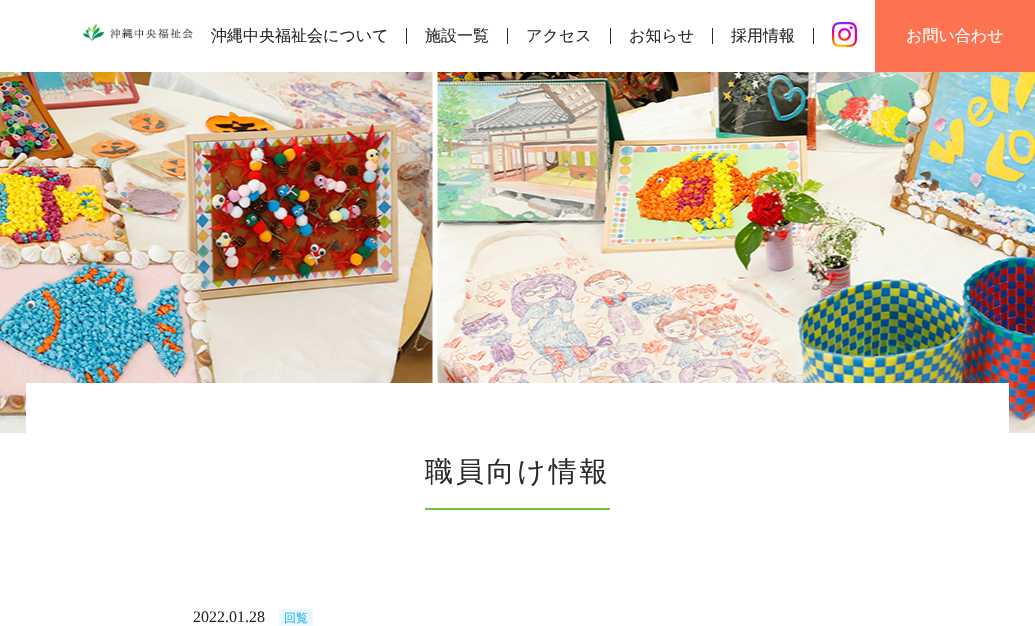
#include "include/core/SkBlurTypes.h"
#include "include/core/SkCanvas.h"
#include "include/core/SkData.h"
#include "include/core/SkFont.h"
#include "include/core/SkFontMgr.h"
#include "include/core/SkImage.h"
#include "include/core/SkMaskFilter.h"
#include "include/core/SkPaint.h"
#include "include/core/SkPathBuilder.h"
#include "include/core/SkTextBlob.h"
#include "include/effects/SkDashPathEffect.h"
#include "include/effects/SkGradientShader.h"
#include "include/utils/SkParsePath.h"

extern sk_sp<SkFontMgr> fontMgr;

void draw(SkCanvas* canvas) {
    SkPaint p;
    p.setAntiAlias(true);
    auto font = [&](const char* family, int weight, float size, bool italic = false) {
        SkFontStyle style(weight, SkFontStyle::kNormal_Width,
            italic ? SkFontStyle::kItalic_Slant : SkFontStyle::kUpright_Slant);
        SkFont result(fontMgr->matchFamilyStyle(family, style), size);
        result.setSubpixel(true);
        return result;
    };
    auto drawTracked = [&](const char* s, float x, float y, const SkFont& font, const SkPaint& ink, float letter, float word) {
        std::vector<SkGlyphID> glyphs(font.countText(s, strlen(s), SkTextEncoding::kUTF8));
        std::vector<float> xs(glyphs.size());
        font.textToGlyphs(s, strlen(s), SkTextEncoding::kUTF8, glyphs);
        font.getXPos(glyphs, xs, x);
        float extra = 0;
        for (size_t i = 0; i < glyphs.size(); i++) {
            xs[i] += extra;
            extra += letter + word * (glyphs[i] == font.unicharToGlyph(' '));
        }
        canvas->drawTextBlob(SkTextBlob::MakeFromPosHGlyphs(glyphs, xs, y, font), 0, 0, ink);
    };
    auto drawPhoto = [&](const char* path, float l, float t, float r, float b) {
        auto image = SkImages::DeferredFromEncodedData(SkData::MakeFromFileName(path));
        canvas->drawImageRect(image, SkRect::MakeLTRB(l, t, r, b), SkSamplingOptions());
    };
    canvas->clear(0xFFFFFFFF);
    drawPhoto("media/1.png", 83, 24, 193, 41);
    p.setColor(0xFF2A2A2A);
    canvas->drawRect(SkRect::MakeLTRB(406, 28, 407, 44), p);
    auto font1 = font("WenQuanYi Zen Hei", 500, 16);
    canvas->drawString("沖縄中央福祉会について", 211, 41, font1, p);
    canvas->drawRect(SkRect::MakeLTRB(507, 28, 508, 44), p);
    canvas->drawString("施設一覧", 425, 41, font1, p);
    canvas->drawRect(SkRect::MakeLTRB(610, 28, 611, 44), p);
    canvas->drawString("アクセス", 526, 41, font1, p);
    canvas->drawRect(SkRect::MakeLTRB(712, 28, 713, 44), p);
    canvas->drawString("お知らせ", 629, 41, font1, p);
    canvas->drawRect(SkRect::MakeLTRB(813, 28, 814, 44), p);
    canvas->drawString("採用情報", 731, 41, font1, p);
    drawPhoto("media/2.png", 832, 22, 857, 47);
    p.setColor(0xFFFD7352);
    canvas->drawRect(SkRect::MakeLTRB(875, 0, 1035, 72), p);
    p.setColor(0xFFFFFFFF);
    canvas->drawString("お問い合わせ", 906, 41, font1, p);
    drawPhoto("media/3.png", 0, 72, 1035, 433);
    canvas->drawRect(SkRect::MakeLTRB(26, 383, 1009, 433), p);
    p.setColor(0xFF70C439);
    canvas->drawRect(SkRect::MakeLTRB(425, 508, 610, 510), p);
    auto font2 = font("WenQuanYi Zen Hei", 500, 28);
    p.setColor(0xFF2A2A2A);
    drawTracked("職員向け情報", 425, 481, font2, p, 2.75f, 0);
    auto font3 = font("Liberation Serif", 400, 16);
    canvas->drawString("2022.01.28", 193, 622, font3, p);
    p.setColor(0xFFECF8FF);
    canvas->drawRect(SkRect::MakeLTRB(279, 609, 313, 626), p);
    auto font4 = font("WenQuanYi Zen Hei", 500, 12);
    p.setColor(0xFF24B6F0);
    canvas->drawString("回覧", 284, 622, font4, p);
}
